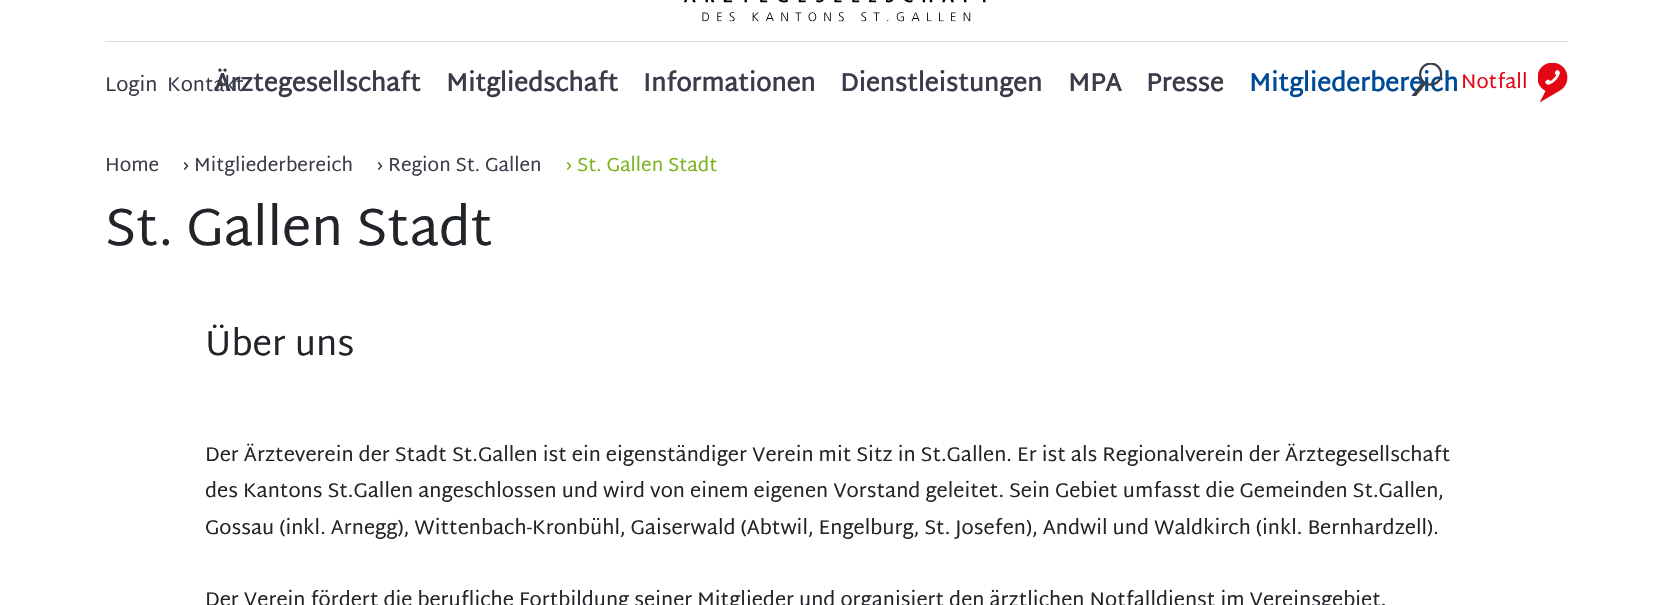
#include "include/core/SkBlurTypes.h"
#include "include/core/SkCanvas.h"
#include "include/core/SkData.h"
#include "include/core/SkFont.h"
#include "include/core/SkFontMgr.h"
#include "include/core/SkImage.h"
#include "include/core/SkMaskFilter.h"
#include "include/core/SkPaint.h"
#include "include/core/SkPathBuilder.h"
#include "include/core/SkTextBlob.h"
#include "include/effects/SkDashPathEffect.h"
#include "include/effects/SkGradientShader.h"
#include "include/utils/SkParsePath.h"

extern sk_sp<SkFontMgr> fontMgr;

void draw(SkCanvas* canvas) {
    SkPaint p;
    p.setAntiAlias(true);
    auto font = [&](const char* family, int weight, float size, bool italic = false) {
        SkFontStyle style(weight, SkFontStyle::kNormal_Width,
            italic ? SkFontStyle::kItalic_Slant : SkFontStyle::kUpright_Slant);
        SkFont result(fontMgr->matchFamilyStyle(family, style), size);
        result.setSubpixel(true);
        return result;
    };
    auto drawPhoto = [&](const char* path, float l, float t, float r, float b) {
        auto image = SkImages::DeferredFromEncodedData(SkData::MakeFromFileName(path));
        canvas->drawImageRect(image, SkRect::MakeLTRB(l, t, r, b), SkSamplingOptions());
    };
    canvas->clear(0xFFFFFFFF);
    drawPhoto("media/1.png", 684, 0, 986, 22);
    p.setColor(0xFFDCDCDD);
    canvas->drawRect(SkRect::MakeLTRB(105, 41, 1568, 42), p);
    auto font1 = font("Martel Sans", 400, 20);
    p.setColor(0xFF3A3C49);
    canvas->drawString("Login", 105, 91, font1, p);
    canvas->drawString("Kontakt", 167, 91, font1, p);
    auto font2 = font("Martel Sans", 700, 25);
    {
        const struct { const char* s; float x, y; } items[] = {
            {"Ärztegesellschaft", 214, 91},
            {"Mitgliedschaft", 446, 91},
            {"Informationen", 643, 91},
            {"Dienstleistungen", 840, 91},
            {"MPA", 1068, 91},
            {"Presse", 1146, 91},
        };
        for (auto [s, x, y] : items) {
            canvas->drawString(s, x, y, font2, p);
        }
    }
    p.setColor(0xFF004A96);
    canvas->drawString("Mitgliederbereich", 1249, 91, font2, p);
    drawPhoto("media/2.png", 1411, 63, 1443, 96);
    p.setColor(0xFFE30613);
    canvas->drawString("Notfall", 1461, 88, font1, p);
    drawPhoto("media/3.png", 1538, 63, 1568, 103);
    auto font3 = font("Martel Sans", 400, 19);
    p.setColor(0xFF3A3C49);
    {
        const struct { const char* s; float x, y; } items[] = {
            {"Home", 105, 171},
            {"› Mitgliederbereich", 183, 171},
            {"› Region St. Gallen", 377, 171},
        };
        for (auto [s, x, y] : items) {
            canvas->drawString(s, x, y, font3, p);
        }
    }
    p.setColor(0xFF7AB41D);
    canvas->drawString("› St. Gallen Stadt", 566, 171, font3, p);
    auto font4 = font("Martel Sans", 400, 52.5f);
    p.setColor(0xFF212529);
    canvas->drawString("St. Gallen Stadt", 105, 245, font4, p);
    auto font5 = font("Martel Sans", 400, 35);
    canvas->drawString("Über uns", 205, 355, font5, p);
    {
        const struct { const char* s; float x, y; } items[] = {
            {"Der Ärzteverein der Stadt St.Gallen ist ein eigenständiger Verein mit Sitz in St.Gallen. Er ist als Regionalverein der Ärztegesellschaft", 205, 461},
            {"des Kantons St.Gallen angeschlossen und wird von einem eigenen Vorstand geleitet. Sein Gebiet umfasst die Gemeinden St.Gallen,", 205, 497},
            {"Gossau (inkl. Arnegg), Wittenbach-Kronbühl, Gaiserwald (Abtwil, Engelburg, St. Josefen), Andwil und Waldkirch (inkl. Bernhardzell).", 205, 534},
            {"Der Verein fördert die berufliche Fortbildung seiner Mitglieder und organisiert den ärztlichen Notfalldienst im Vereinsgebiet.", 205, 606},
        };
        for (auto [s, x, y] : items) {
            canvas->drawString(s, x, y, font1, p);
        }
    }
}
